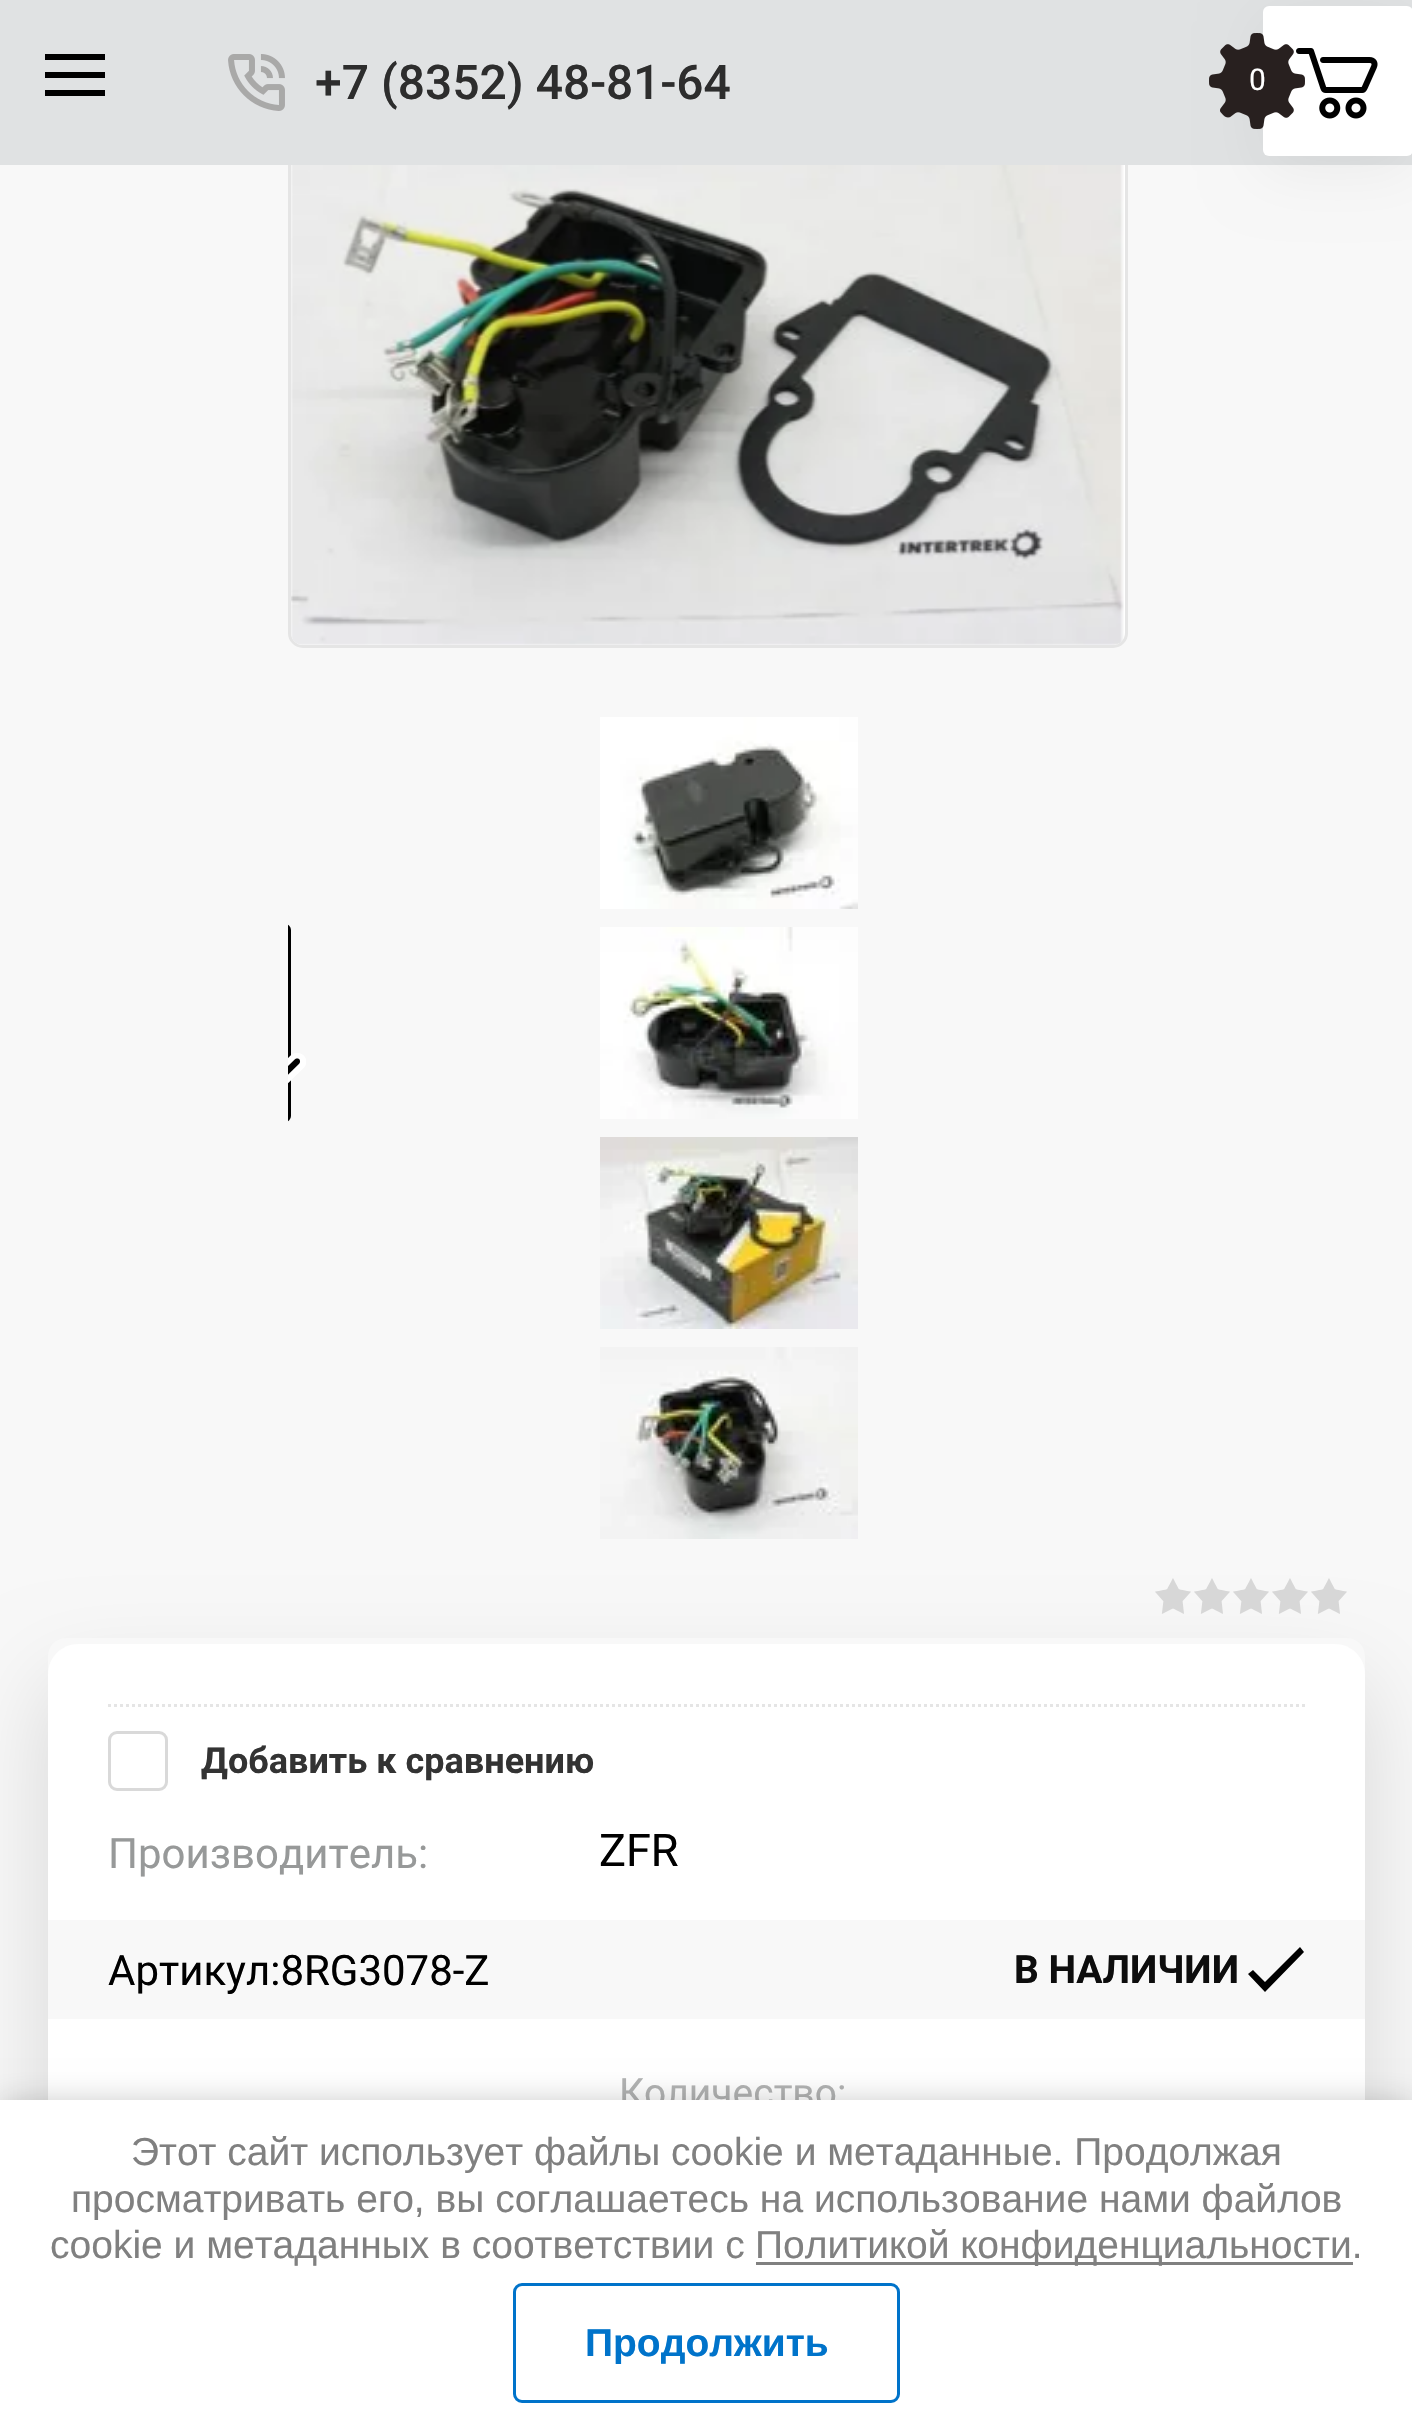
#include "include/core/SkBlurTypes.h"
#include "include/core/SkCanvas.h"
#include "include/core/SkData.h"
#include "include/core/SkFont.h"
#include "include/core/SkFontMgr.h"
#include "include/core/SkImage.h"
#include "include/core/SkMaskFilter.h"
#include "include/core/SkPaint.h"
#include "include/core/SkPathBuilder.h"
#include "include/core/SkTextBlob.h"
#include "include/effects/SkDashPathEffect.h"
#include "include/effects/SkGradientShader.h"
#include "include/utils/SkParsePath.h"

extern sk_sp<SkFontMgr> fontMgr;

void draw(SkCanvas* canvas) {
    SkPaint p;
    p.setAntiAlias(true);
    auto font = [&](const char* family, int weight, float size, bool italic = false) {
        SkFontStyle style(weight, SkFontStyle::kNormal_Width,
            italic ? SkFontStyle::kItalic_Slant : SkFontStyle::kUpright_Slant);
        SkFont result(fontMgr->matchFamilyStyle(family, style), size);
        result.setSubpixel(true);
        return result;
    };
    auto drawPhoto = [&](const char* path, float l, float t, float r, float b) {
        auto image = SkImages::DeferredFromEncodedData(SkData::MakeFromFileName(path));
        canvas->drawImageRect(image, SkRect::MakeLTRB(l, t, r, b), SkSamplingOptions());
    };
    canvas->clear(0xFFF8F8F8);
    p.setColor(0xFFFFFFFF);
    canvas->drawRoundRect(SkRect::MakeLTRB(289.5f, 19.5f, 1126.5f, 646.5f), 13.5f, 13.5f, p);
    p.setStyle(SkPaint::kStroke_Style);
    p.setStrokeWidth(3);
    p.setColor(0xFFE5E5E5);
    canvas->drawRoundRect(SkRect::MakeLTRB(289.5f, 19.5f, 1126.5f, 646.5f), 13.5f, 13.5f, p);
    p.setStyle(SkPaint::kFill_Style);
    {
        const struct { float l, t, r, b; SkColor color; } items[] = {
            {0, 0, 1412, 165, 0xFFE0E2E3},
            {45, 54, 105, 60, 0xFF000000},
            {45, 72, 105, 78, 0xFF000000},
            {45, 90, 105, 96, 0xFF000000},
        };
        for (auto [l, t, r, b, color] : items) {
            p.setColor(color);
            canvas->drawRect(SkRect::MakeLTRB(l, t, r, b), p);
        }
    }
    drawPhoto("media/1.png", 228, 54, 285, 111);
    auto font1 = font("Roboto", 500, 48);
    p.setColor(0xFF2D2D2D);
    canvas->drawString("+7 (8352) 48-81-64", 315, 99, font1, p);
    p.setColor(0x0D000000);
    p.setMaskFilter(SkMaskFilter::MakeBlur(kNormal_SkBlurStyle, 30));
    canvas->drawRoundRect(SkRect::MakeLTRB(1263, 21, 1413, 171), 6, 6, p);
    p.setMaskFilter(nullptr);
    p.setColor(0xFFFFFFFF);
    canvas->drawRoundRect(SkRect::MakeLTRB(1263, 6, 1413, 156), 6, 6, p);
    drawPhoto("media/2.png", 1296, 48, 1378, 119);
    drawPhoto("media/3.png", 1209, 33, 1305, 129);
    auto font2 = font("Roboto", 400, 30);
    canvas->drawString("0", 1249, 90, font2, p);
    drawPhoto("media/4.png", 291, 165, 1124, 645);
    drawPhoto("media/5.png", 600, 717, 858, 909);
    canvas->save();
    canvas->clipRect(SkRect::MakeLTRB(288, 708, 1128, 1548));
    p.setStyle(SkPaint::kStroke_Style);
    p.setColor(0xFF000000);
    canvas->drawRoundRect(SkRect::MakeLTRB(-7.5f, 925.5f, 289.5f, 1120.5f), 4.5f, 4.5f, p);
    canvas->restore();
    drawPhoto("media/6.png", 288, 1053, 306, 1084);
    drawPhoto("media/7.png", 600, 927, 858, 1119);
    drawPhoto("media/8.png", 600, 1137, 858, 1329);
    drawPhoto("media/9.png", 600, 1347, 858, 1539);
    canvas->save();
    canvas->clipPath(SkPathBuilder(SkPathFillType::kEvenOdd).moveTo(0, 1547).lineTo(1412, 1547).lineTo(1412, 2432).lineTo(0, 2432).close().moveTo(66, 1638).lineTo(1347, 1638).cubicTo(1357, 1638, 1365, 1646, 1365, 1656).lineTo(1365, 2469).cubicTo(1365, 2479, 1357, 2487, 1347, 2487).lineTo(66, 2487).cubicTo(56, 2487, 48, 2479, 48, 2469).lineTo(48, 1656).cubicTo(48, 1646, 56, 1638, 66, 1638).close().detach(), true);
    p.setStyle(SkPaint::kFill_Style);
    p.setColor(0x21000000);
    p.setMaskFilter(SkMaskFilter::MakeBlur(kNormal_SkBlurStyle, 45));
    canvas->drawRoundRect(SkRect::MakeLTRB(48, 1683, 1365, 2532), 18, 18, p);
    p.setMaskFilter(nullptr);
    canvas->restore();
    drawPhoto("media/10.png", 1155, 1578, 1347, 1614);
    p.setColor(0xFFFFFFFF);
    canvas->drawPath(SkPathBuilder().moveTo(78, 1644).lineTo(1335, 1644).cubicTo(1351.5f, 1644, 1365, 1657.5f, 1365, 1674).lineTo(1365, 1920).lineTo(48, 1920).lineTo(48, 1674).cubicTo(48, 1657.5f, 61.5f, 1644, 78, 1644).close().detach(), p);
    p.setStyle(SkPaint::kStroke_Style);
    p.setColor(0xFFE5E5E5);
    p.setPathEffect(SkDashPathEffect::Make({{3, 3}}, 0));
    canvas->drawPath(SkPathBuilder().moveTo(108, 1705.5f).lineTo(1305, 1705.5f).detach(), p);
    p.setPathEffect(nullptr);
    p.setColor(0xFFD9D9D9);
    canvas->drawRoundRect(SkRect::MakeLTRB(109.5f, 1732.5f, 166.5f, 1789.5f), 7.5f, 7.5f, p);
    auto font3 = font("Roboto", 700, 36);
    p.setStyle(SkPaint::kFill_Style);
    p.setColor(0xFF333333);
    canvas->drawString("Добавить к сравнению", 201, 1773, font3, p);
    auto font4 = font("Roboto", 400, 42);
    p.setColor(0xFF979999);
    canvas->drawString("Производитель:", 108, 1868, font4, p);
    auto font5 = font("Roboto", 400, 45);
    p.setColor(0xFF000000);
    canvas->drawString("ZFR", 599, 1866, font5, p);
    canvas->drawString("Артикул:8RG3078-Z", 108, 1985, font4, p);
    canvas->drawPath(SkPathBuilder(SkPathFillType::kEvenOdd).moveTo(1304, 1952).lineTo(1265, 1992).lineTo(1248, 1974).lineTo(1253, 1970).lineTo(1265, 1982).lineTo(1300, 1947).close().detach(), p);
    auto font6 = font("Roboto", 700, 39);
    p.setColor(0xFF0D0D0D);
    canvas->drawString("В НАЛИЧИИ", 1014, 1983, font6, p);
    p.setColor(0xFFFFFFFF);
    canvas->drawRect(SkRect::MakeLTRB(48, 2019, 1365, 2100), p);
    auto font7 = font("Roboto", 400, 39);
    p.setColor(0xFFB2B3B3);
    canvas->drawString("Количество:", 619, 2106, font7, p);
    p.setColor(0x3B000000);
    p.setMaskFilter(SkMaskFilter::MakeBlur(kNormal_SkBlurStyle, 15));
    canvas->drawRect(SkRect::MakeLTRB(0, 2103, 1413, 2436), p);
    p.setMaskFilter(nullptr);
    p.setColor(0xFFFFFFFF);
    canvas->drawRect(SkRect::MakeLTRB(0, 2100, 1412, 2432), p);
    auto font8 = font("Liberation Sans", 400, 39);
    p.setColor(0xFF808080);
    {
        const struct { const char* s; float x, y; } items[] = {
            {"Этот сайт использует файлы cookie и метаданные. Продолжая", 131, 2165},
            {"просматривать его, вы соглашаетесь на использование нами файлов", 71, 2212},
            {"cookie и метаданных в соответствии с", 50, 2258},
        };
        for (auto [s, x, y] : items) {
            canvas->drawString(s, x, y, font8, p);
        }
    }
    canvas->drawRect(SkRect::MakeLTRB(756, 2262, 1353, 2265), p);
    canvas->drawString("Политикой конфиденциальности.", 755, 2258, font8, p);
    p.setStyle(SkPaint::kStroke_Style);
    p.setColor(0xFF0073CA);
    canvas->drawRoundRect(SkRect::MakeLTRB(514.5f, 2284.5f, 898.5f, 2401.5f), 7.5f, 7.5f, p);
    auto font9 = font("Liberation Sans", 700, 39);
    p.setStyle(SkPaint::kFill_Style);
    canvas->drawString("Продолжить", 585, 2356, font9, p);
}
